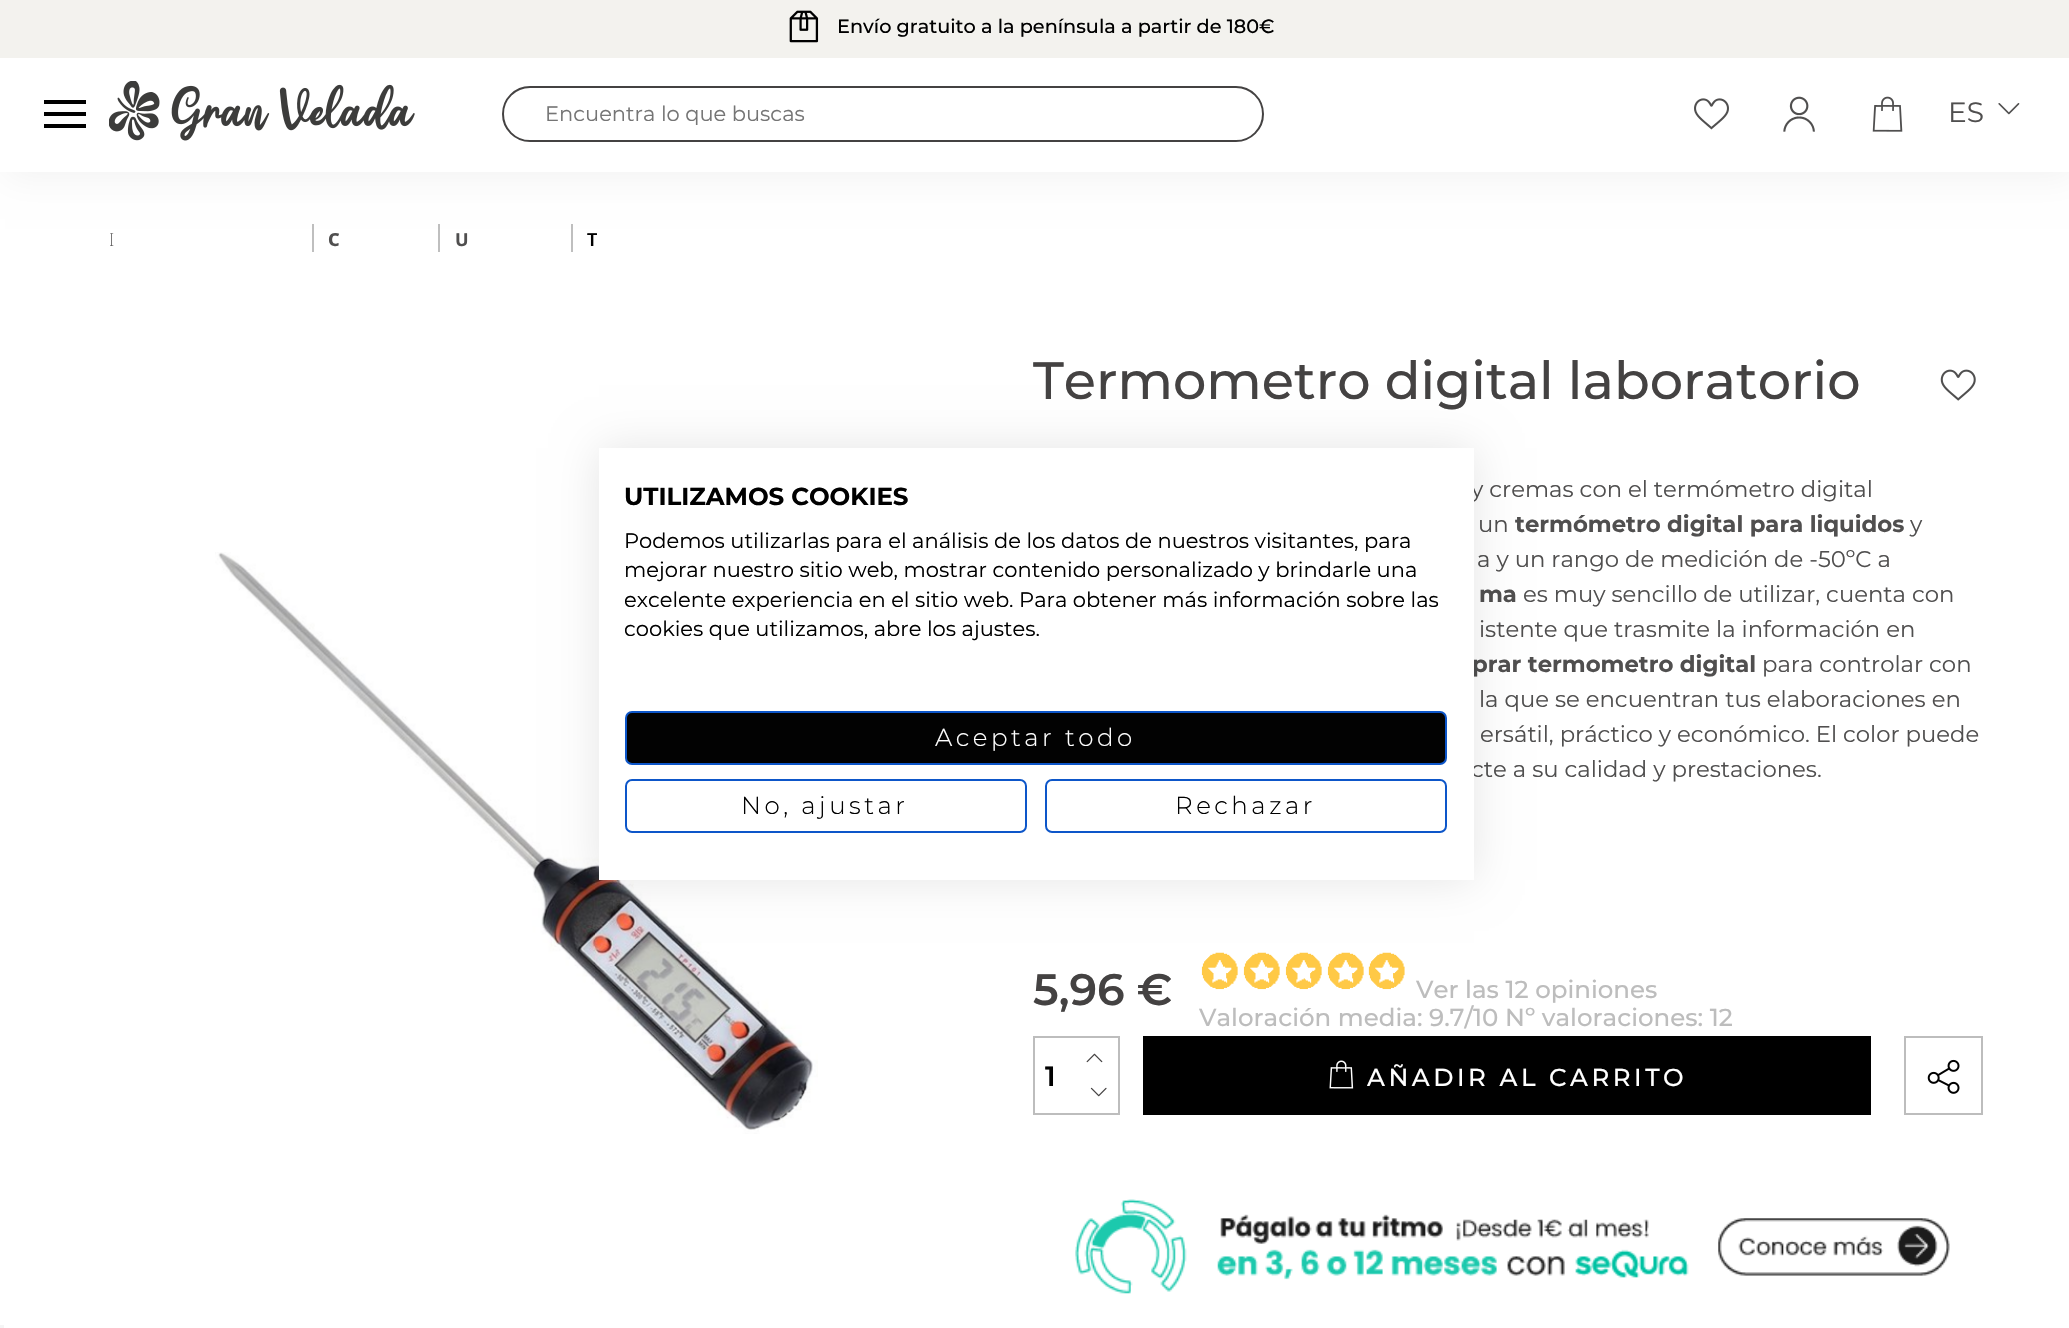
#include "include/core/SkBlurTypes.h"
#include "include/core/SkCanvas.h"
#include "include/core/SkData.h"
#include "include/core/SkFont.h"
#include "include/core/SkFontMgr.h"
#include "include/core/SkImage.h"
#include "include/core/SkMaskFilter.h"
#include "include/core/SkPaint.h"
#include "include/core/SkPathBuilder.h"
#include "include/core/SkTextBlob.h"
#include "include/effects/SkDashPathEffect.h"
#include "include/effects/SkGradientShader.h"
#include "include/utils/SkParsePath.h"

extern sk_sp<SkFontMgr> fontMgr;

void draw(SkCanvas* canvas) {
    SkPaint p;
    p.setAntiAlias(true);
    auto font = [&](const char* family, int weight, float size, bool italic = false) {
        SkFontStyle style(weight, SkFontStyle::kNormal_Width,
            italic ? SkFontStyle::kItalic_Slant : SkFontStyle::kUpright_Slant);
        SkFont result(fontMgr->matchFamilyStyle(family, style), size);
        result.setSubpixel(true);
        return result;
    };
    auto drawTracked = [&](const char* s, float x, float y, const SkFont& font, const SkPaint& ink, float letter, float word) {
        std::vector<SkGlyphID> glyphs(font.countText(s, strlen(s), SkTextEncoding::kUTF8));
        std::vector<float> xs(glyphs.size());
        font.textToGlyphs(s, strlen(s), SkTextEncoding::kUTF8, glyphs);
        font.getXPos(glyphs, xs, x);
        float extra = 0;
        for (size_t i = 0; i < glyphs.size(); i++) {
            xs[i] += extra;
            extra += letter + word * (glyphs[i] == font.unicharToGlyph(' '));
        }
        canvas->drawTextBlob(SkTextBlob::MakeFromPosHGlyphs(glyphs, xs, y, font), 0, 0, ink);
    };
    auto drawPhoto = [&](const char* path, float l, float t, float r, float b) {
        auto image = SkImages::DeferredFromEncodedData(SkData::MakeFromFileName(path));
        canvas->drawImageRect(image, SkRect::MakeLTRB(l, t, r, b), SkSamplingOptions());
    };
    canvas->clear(0xFFFFFFFF);
    {
        const struct { float l, t, r, b; SkColor color; } items[] = {
            {312, 224, 314, 252, 0xFFBFBFBF},
            {438, 224, 440, 252, 0xFFBFBFBF},
            {571, 224, 573, 252, 0xFFBFBFBF},
        };
        for (auto [l, t, r, b, color] : items) {
            p.setColor(color);
            canvas->drawRect(SkRect::MakeLTRB(l, t, r, b), p);
        }
    }
    p.setColor(0x0D000000);
    p.setMaskFilter(SkMaskFilter::MakeBlur(kNormal_SkBlurStyle, 17.5f));
    canvas->drawRect(SkRect::MakeLTRB(5, 5, 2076, 177), p);
    p.setMaskFilter(nullptr);
    p.setColor(0xFFFFFFFF);
    canvas->drawRect(SkRect::MakeLTRB(0, 58, 2069, 172), p);
    p.setColor(0xFFF3F2EE);
    canvas->drawRect(SkRect::MakeLTRB(0, 0, 2069, 58), p);
    drawPhoto("media/1.png", 789, 10, 819, 43);
    auto font1 = font("Montserrat", 500, 19.25f);
    p.setColor(0xFF000000);
    canvas->drawString("Envío gratuito a la península a partir de 180€", 837, 33, font1, p);
    {
        const struct { float l, t, r, b; SkColor color; } items[] = {
            {44, 100, 86, 104, 0xFF000000},
            {44, 112, 86, 116, 0xFF000000},
            {44, 124, 86, 128, 0xFF000000},
        };
        for (auto [l, t, r, b, color] : items) {
            p.setColor(color);
            canvas->drawRect(SkRect::MakeLTRB(l, t, r, b), p);
        }
    }
    drawPhoto("media/2.png", 109, 81, 415, 141);
    p.setStyle(SkPaint::kStroke_Style);
    p.setStrokeWidth(2);
    p.setColor(0xFF444242);
    canvas->drawRoundRect(SkRect::MakeLTRB(503, 87, 1263, 141), 27, 27, p);
    auto font2 = font("Montserrat", 400, 21);
    p.setStyle(SkPaint::kFill_Style);
    p.setColor(0xFF757575);
    canvas->drawString("Encuentra lo que buscas", 545, 121, font2, p);
    drawPhoto("media/3.png", 1694, 98, 1729, 130);
    drawPhoto("media/4.png", 1783, 96, 1815, 132);
    drawPhoto("media/5.png", 1872, 96, 1903, 132);
    auto font3 = font("Montserrat", 400, 28);
    p.setColor(0xFF504F4F);
    canvas->drawString("ES", 1948, 122, font3, p);
    drawPhoto("media/6.png", 1998, 103, 2020, 115);
    auto font4 = font("Noto Sans", 200, 18);
    canvas->drawString("I", 109, 246, font4, p);
    auto font5 = font("Noto Sans", 800, 18);
    canvas->drawString("C", 328, 246, font5, p);
    auto font6 = font("Noto Sans", 700, 18);
    canvas->drawString("U", 455, 246, font6, p);
    auto font7 = font("Noto Sans", 600, 18);
    p.setColor(0xFF000000);
    canvas->drawString("T", 587, 246, font7, p);
    drawPhoto("media/7.png", 215, 552, 818, 1134);
    auto font8 = font("Montserrat", 500, 52.5f);
    p.setColor(0xFF444242);
    canvas->drawString("Termometro digital laboratorio", 1033, 399, font8, p);
    drawPhoto("media/8.png", 1940, 369, 1976, 401);
    auto font9 = font("Montserrat", 400, 22.75f);
    p.setColor(0xFF504F4F);
    canvas->drawString("y cremas con el termómetro digital", 1471, 497, font9, p);
    canvas->drawString("un", 1478, 532, font9, p);
    auto font10 = font("Montserrat", 700, 22.75f);
    canvas->drawString("termómetro digital para liquidos", 1515, 532, font10, p);
    canvas->drawString("y", 1910, 532, font9, p);
    canvas->drawString("a y un rango de medición de -50ºC a", 1477, 567, font9, p);
    canvas->drawString("ma", 1479, 602, font10, p);
    canvas->drawString("es muy sencillo de utilizar, cuenta con", 1523, 602, font9, p);
    canvas->drawString("istente que trasmite la información en", 1479, 637, font9, p);
    canvas->drawString("prar termometro digital", 1472, 672, font10, p);
    {
        const struct { const char* s; float x, y; } items[] = {
            {"para controlar con", 1762, 672},
            {"la que se encuentran tus elaboraciones en", 1479, 707},
            {"ersátil, práctico y económico. El color puede", 1480, 742},
            {"cte a su calidad y prestaciones.", 1471, 777},
        };
        for (auto [s, x, y] : items) {
            canvas->drawString(s, x, y, font9, p);
        }
    }
    auto font11 = font("Montserrat", 600, 44);
    p.setColor(0xFF444242);
    canvas->drawString("5,96 €", 1033, 1005, font11, p);
    drawPhoto("media/9.png", 1201, 952, 1405, 990);
    auto font12 = font("Montserrat", 500, 24.5f);
    p.setColor(0xFFBDBDBD);
    canvas->drawString("Ver las 12 opiniones", 1416, 998, font12, p);
    canvas->drawString("Valoración media: 9.7/10 Nº valoraciones: 12", 1199, 1026, font12, p);
    p.setStyle(SkPaint::kStroke_Style);
    canvas->drawRect(SkRect::MakeLTRB(1034, 1037, 1119, 1114), p);
    drawPhoto("media/10.png", 1086, 1053, 1103, 1063);
    auto font13 = font("Montserrat", 600, 28);
    p.setStyle(SkPaint::kFill_Style);
    p.setColor(0xFF000000);
    drawTracked("1", 1045, 1086, font13, p, 3.5f, 0);
    drawPhoto("media/11.png", 1090, 1087, 1107, 1097);
    canvas->drawRect(SkRect::MakeLTRB(1143, 1036, 1871, 1115), p);
    drawPhoto("media/12.png", 1329, 1060, 1354, 1089);
    p.setColor(0xFFFFFFFF);
    drawTracked("AÑADIR AL CARRITO", 1367, 1086, font12, p, 3.5f, 0);
    p.setStyle(SkPaint::kStroke_Style);
    p.setColor(0xFFBDBDBD);
    canvas->drawRect(SkRect::MakeLTRB(1905, 1037, 1982, 1114), p);
    drawPhoto("media/13.png", 1927, 1059, 1960, 1094);
    drawPhoto("media/14.png", 1075, 1199, 1950, 1294);
    p.setStyle(SkPaint::kFill_Style);
    p.setColor(0x1A000000);
    p.setMaskFilter(SkMaskFilter::MakeBlur(kNormal_SkBlurStyle, 21));
    canvas->drawRect(SkRect::MakeLTRB(599, 448, 1474, 880), p);
    p.setMaskFilter(nullptr);
    p.setColor(0xFFFFFFFF);
    canvas->drawRect(SkRect::MakeLTRB(599, 448, 1474, 880), p);
    auto font14 = font("Montserrat", 700, 24.5f);
    p.setColor(0xFF000000);
    canvas->drawString("UTILIZAMOS COOKIES", 624, 505, font14, p);
    {
        const struct { const char* s; float x, y; } items[] = {
            {"Podemos utilizarlas para el análisis de los datos de nuestros visitantes, para", 624, 548},
            {"mejorar nuestro sitio web, mostrar contenido personalizado y brindarle una", 624, 577},
            {"excelente experiencia en el sitio web. Para obtener más información sobre las", 624, 607},
            {"cookies que utilizamos, abre los ajustes.", 624, 636},
        };
        for (auto [s, x, y] : items) {
            canvas->drawString(s, x, y, font2, p);
        }
    }
    p.setColor(0xFF020202);
    canvas->drawRoundRect(SkRect::MakeLTRB(626, 712, 1446, 764), 6, 6, p);
    p.setStyle(SkPaint::kStroke_Style);
    p.setColor(0xFF0D56C9);
    canvas->drawRoundRect(SkRect::MakeLTRB(626, 712, 1446, 764), 6, 6, p);
    auto font15 = font("Montserrat", 300, 24.5f);
    p.setStyle(SkPaint::kFill_Style);
    p.setColor(0xFFFFFFFF);
    drawTracked("Aceptar todo", 935, 746, font15, p, 3.5f, 0);
    p.setStyle(SkPaint::kStroke_Style);
    p.setColor(0xFF0D56C9);
    canvas->drawRoundRect(SkRect::MakeLTRB(626, 780, 1026, 832), 6, 6, p);
    p.setStyle(SkPaint::kFill_Style);
    p.setColor(0xFF000000);
    drawTracked("No, ajustar", 741, 814, font15, p, 3.5f, 0);
    p.setStyle(SkPaint::kStroke_Style);
    p.setColor(0xFF0D56C9);
    canvas->drawRoundRect(SkRect::MakeLTRB(1046, 780, 1446, 832), 6, 6, p);
    p.setStyle(SkPaint::kFill_Style);
    p.setColor(0xFF000000);
    drawTracked("Rechazar", 1175, 814, font15, p, 3.5f, 0);
    p.setColor(0xFFF5F5F5);
    canvas->drawRect(SkRect::MakeLTRB(0, 1325, 4, 1328), p);
}
